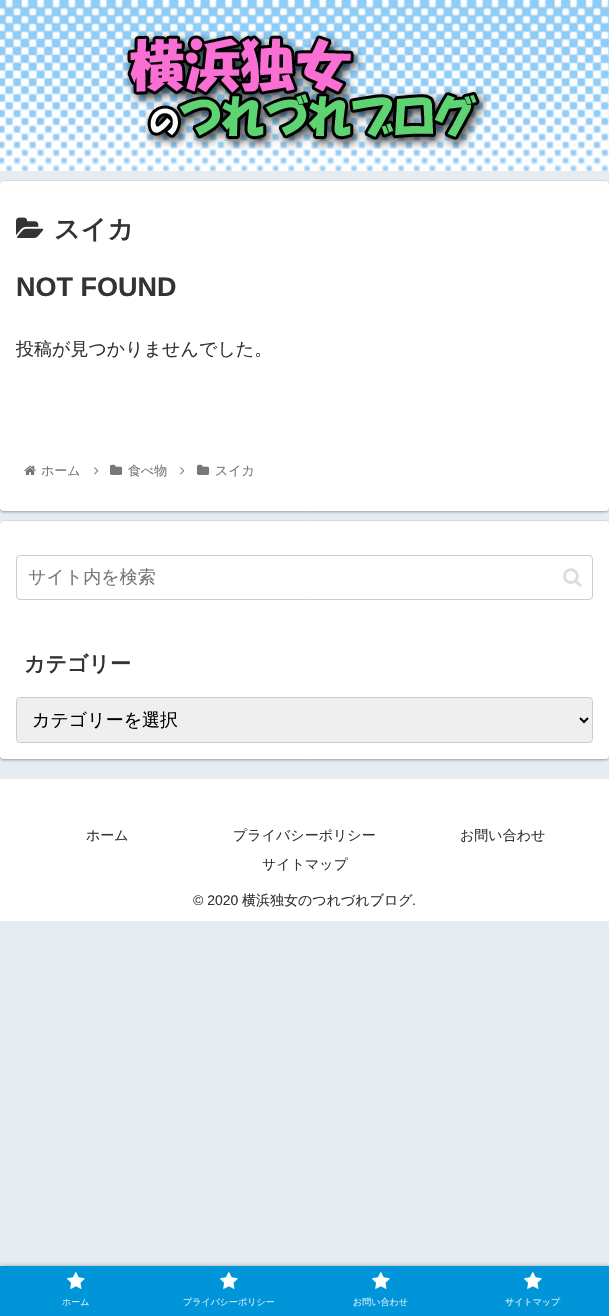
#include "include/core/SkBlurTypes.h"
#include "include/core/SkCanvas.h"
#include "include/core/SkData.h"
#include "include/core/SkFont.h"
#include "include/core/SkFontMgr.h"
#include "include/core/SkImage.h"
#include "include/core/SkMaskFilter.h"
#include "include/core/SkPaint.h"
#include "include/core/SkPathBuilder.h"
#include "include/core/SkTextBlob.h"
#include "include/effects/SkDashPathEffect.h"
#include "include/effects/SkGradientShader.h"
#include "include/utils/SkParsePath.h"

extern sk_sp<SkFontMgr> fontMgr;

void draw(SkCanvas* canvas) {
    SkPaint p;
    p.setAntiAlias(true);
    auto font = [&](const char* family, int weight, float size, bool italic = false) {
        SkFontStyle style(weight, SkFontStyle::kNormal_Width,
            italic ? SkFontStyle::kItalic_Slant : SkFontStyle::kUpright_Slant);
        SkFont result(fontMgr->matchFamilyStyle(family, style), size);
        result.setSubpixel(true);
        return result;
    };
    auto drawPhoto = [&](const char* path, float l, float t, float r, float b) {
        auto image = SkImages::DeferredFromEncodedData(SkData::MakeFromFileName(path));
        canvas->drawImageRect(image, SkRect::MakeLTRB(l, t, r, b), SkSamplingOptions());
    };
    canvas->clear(0xFFE6ECF0);
    drawPhoto("media/1.png", 0, 0, 609, 171);
    drawPhoto("media/2.png", 123, 32, 487, 149);
    p.setStyle(SkPaint::kStroke_Style);
    p.setStrokeWidth(1);
    p.setColor(0xFFD4D9DD);
    canvas->drawRoundRect(SkRect::MakeLTRB(-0.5f, 180.5f, 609.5f, 511.5f), 4.5f, 4.5f, p);
    p.setStyle(SkPaint::kFill_Style);
    p.setColor(0x29000000);
    p.setMaskFilter(SkMaskFilter::MakeBlur(kNormal_SkBlurStyle, 1));
    canvas->drawRoundRect(SkRect::MakeLTRB(0, 183, 609, 513), 4, 4, p);
    p.setMaskFilter(nullptr);
    p.setColor(0xFFFFFFFF);
    canvas->drawRoundRect(SkRect::MakeLTRB(0, 181, 609, 511), 4, 4, p);
    drawPhoto("media/3.png", 16, 217, 44, 238);
    auto font1 = font("WenQuanYi Zen Hei", 700, 26);
    p.setColor(0xFF333333);
    canvas->drawString("スイカ", 54, 238, font1, p);
    auto font2 = font("Liberation Sans", 700, 27);
    canvas->drawString("NOT FOUND", 16, 296, font2, p);
    auto font3 = font("WenQuanYi Zen Hei", 500, 18);
    canvas->drawString("投稿が見つかりませんでした。", 16, 355, font3, p);
    drawPhoto("media/4.png", 24, 465, 36, 475);
    auto font4 = font("WenQuanYi Zen Hei", 500, 13);
    p.setColor(0xFF777777);
    canvas->drawString("ホーム", 41, 475, font4, p);
    drawPhoto("media/5.png", 94, 467, 99, 475);
    drawPhoto("media/6.png", 110, 464, 123, 475);
    canvas->drawString("食べ物", 128, 475, font4, p);
    drawPhoto("media/5.png", 180, 467, 185, 475);
    drawPhoto("media/6.png", 197, 464, 210, 475);
    canvas->drawString("スイカ", 215, 475, font4, p);
    p.setStyle(SkPaint::kStroke_Style);
    p.setColor(0xFFD4D9DD);
    canvas->drawRoundRect(SkRect::MakeLTRB(-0.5f, 520.5f, 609.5f, 759.5f), 4.5f, 4.5f, p);
    p.setStyle(SkPaint::kFill_Style);
    p.setColor(0x29000000);
    p.setMaskFilter(SkMaskFilter::MakeBlur(kNormal_SkBlurStyle, 1));
    canvas->drawRoundRect(SkRect::MakeLTRB(0, 523, 609, 761), 4, 4, p);
    p.setMaskFilter(nullptr);
    p.setColor(0xFFFFFFFF);
    canvas->drawRoundRect(SkRect::MakeLTRB(0, 521, 609, 759), 4, 4, p);
    p.setStyle(SkPaint::kStroke_Style);
    p.setColor(0xFFCCCCCC);
    canvas->drawRoundRect(SkRect::MakeLTRB(16.5f, 555.5f, 592.5f, 599.5f), 3.5f, 3.5f, p);
    p.setStyle(SkPaint::kFill_Style);
    p.setColor(0xFF777777);
    canvas->drawString("サイト内を検索", 28, 583, font3, p);
    drawPhoto("media/7.png", 563, 568, 582, 587);
    auto font5 = font("WenQuanYi Zen Hei", 700, 21);
    p.setColor(0xFF333333);
    canvas->drawString("カテゴリー", 24, 671, font5, p);
    p.setColor(0xFFEFEFEF);
    canvas->drawRoundRect(SkRect::MakeLTRB(16.5f, 697.5f, 592.5f, 742.5f), 3.5f, 3.5f, p);
    p.setStyle(SkPaint::kStroke_Style);
    p.setColor(0xFFCCCCCC);
    canvas->drawRoundRect(SkRect::MakeLTRB(16.5f, 697.5f, 592.5f, 742.5f), 3.5f, 3.5f, p);
    p.setStrokeWidth(2);
    p.setColor(0xFF000000);
    canvas->drawPath(SkPathBuilder().moveTo(580, 718).lineTo(584, 722).lineTo(588, 718).detach(), p);
    p.setStyle(SkPaint::kFill_Style);
    canvas->drawString("カテゴリーを選択", 32, 726, font3, p);
    p.setColor(0xFFFFFFFF);
    canvas->drawRect(SkRect::MakeLTRB(0, 779, 609, 921), p);
    auto font6 = font("WenQuanYi Zen Hei", 500, 14);
    p.setColor(0xFF333333);
    {
        const struct { const char* s; float x, y; } items[] = {
            {"ホーム", 86, 840},
            {"プライバシーポリシー", 233, 840},
            {"お問い合わせ", 460, 840},
            {"サイトマップ", 262, 869},
        };
        for (auto [s, x, y] : items) {
            canvas->drawString(s, x, y, font6, p);
        }
    }
    auto font7 = font("Liberation Sans", 400, 14);
    canvas->drawString("© 2020", 193, 905, font7, p);
    canvas->drawString("横浜独女のつれづれブログ", 242, 905, font6, p);
    canvas->drawString(".", 412, 905, font7, p);
    p.setColor(0xFFA9A9A9);
    p.setMaskFilter(SkMaskFilter::MakeBlur(kNormal_SkBlurStyle, 2.5f));
    canvas->drawRect(SkRect::MakeLTRB(0, 1266, 609, 1316), p);
    p.setMaskFilter(nullptr);
    p.setColor(0xFF0095D9);
    canvas->drawRect(SkRect::MakeLTRB(0, 1266, 609, 1316), p);
    drawPhoto("media/8.png", 67, 1272, 85, 1289);
    auto font8 = font("WenQuanYi Zen Hei", 500, 9);
    p.setColor(0xFFCCEAF7);
    canvas->drawString("ホーム", 62, 1305, font8, p);
    drawPhoto("media/8.png", 220, 1272, 238, 1289);
    canvas->drawString("プライバシーポリシー", 183, 1305, font8, p);
    drawPhoto("media/8.png", 372, 1272, 390, 1289);
    canvas->drawString("お問い合わせ", 353, 1305, font8, p);
    drawPhoto("media/8.png", 524, 1272, 542, 1289);
    canvas->drawString("サイトマップ", 505, 1305, font8, p);
}
